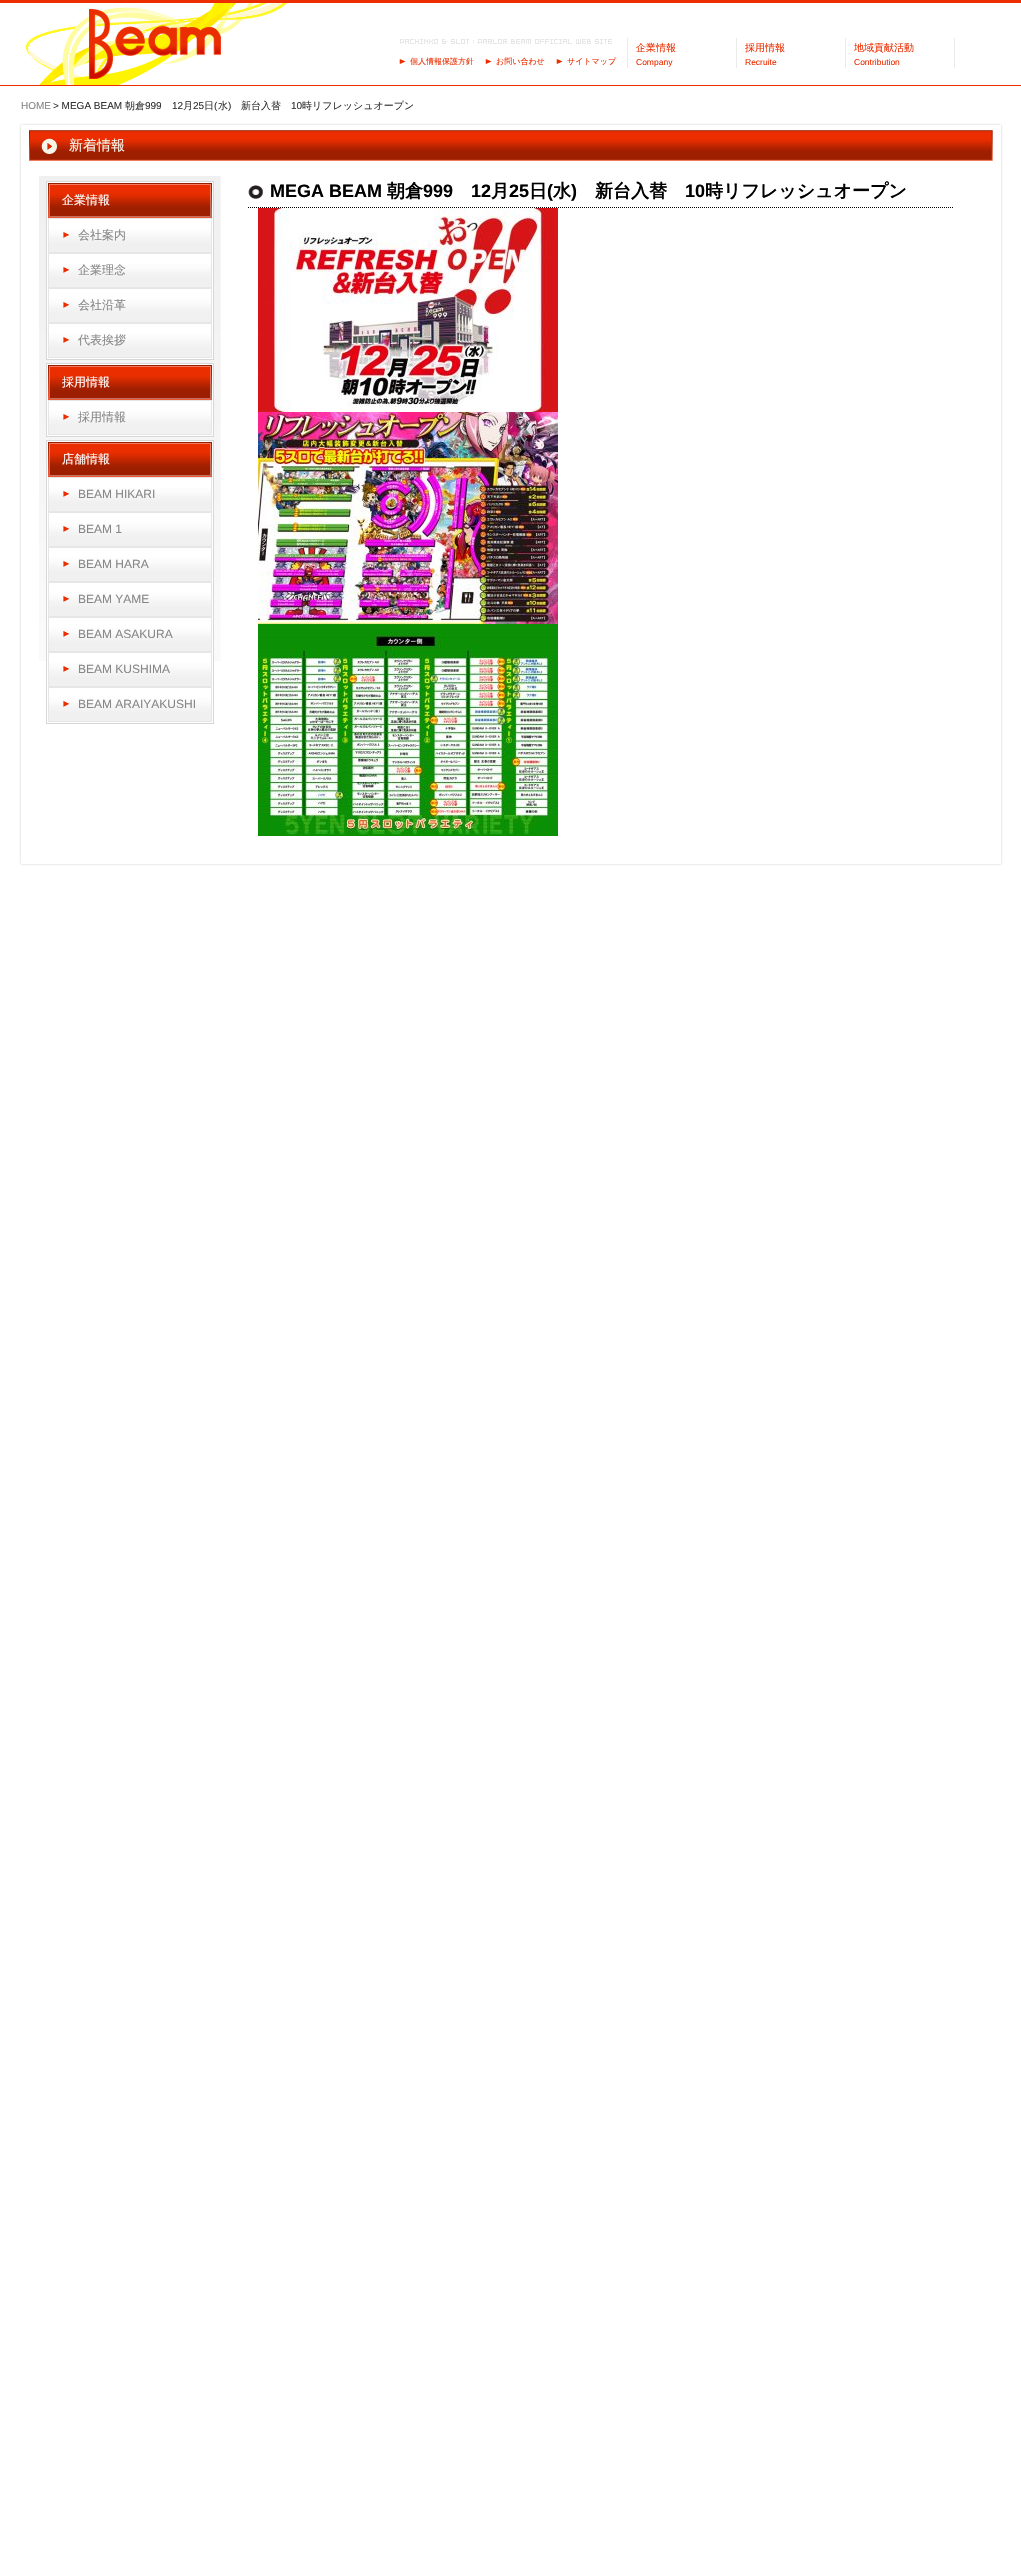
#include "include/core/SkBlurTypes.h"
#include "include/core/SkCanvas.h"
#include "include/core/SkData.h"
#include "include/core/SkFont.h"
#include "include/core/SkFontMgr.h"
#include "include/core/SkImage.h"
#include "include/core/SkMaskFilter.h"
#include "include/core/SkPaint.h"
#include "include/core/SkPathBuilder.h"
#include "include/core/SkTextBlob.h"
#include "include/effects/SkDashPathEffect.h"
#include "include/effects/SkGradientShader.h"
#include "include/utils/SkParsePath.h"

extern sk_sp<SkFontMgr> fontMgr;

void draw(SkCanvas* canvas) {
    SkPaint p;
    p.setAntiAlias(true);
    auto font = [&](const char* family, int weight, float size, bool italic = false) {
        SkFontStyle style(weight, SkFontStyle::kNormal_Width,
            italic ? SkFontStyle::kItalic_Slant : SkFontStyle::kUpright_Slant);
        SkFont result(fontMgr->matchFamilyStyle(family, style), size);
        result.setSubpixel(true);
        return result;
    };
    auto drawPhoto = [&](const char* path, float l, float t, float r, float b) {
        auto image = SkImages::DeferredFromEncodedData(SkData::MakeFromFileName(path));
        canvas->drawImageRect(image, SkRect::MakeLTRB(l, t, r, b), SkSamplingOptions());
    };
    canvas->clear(0xFFFFFFFF);
    p.setColor(0xFFEB2E00);
    canvas->drawRect(SkRect::MakeLTRB(0, 85, 1021, 86), p);
    p.setColor(0xFFEB2D00);
    canvas->drawRect(SkRect::MakeLTRB(0, 0, 1021, 3), p);
    drawPhoto("media/1.png", 25, 3, 287, 85);
    drawPhoto("media/2.png", 400, 39, 612, 44);
    drawPhoto("media/3.png", 399, 59, 406, 64);
    auto font1 = font("WenQuanYi Zen Hei", 500, 8);
    canvas->drawString("個人情報保護方針", 410, 64, font1, p);
    drawPhoto("media/3.png", 485, 59, 492, 64);
    canvas->drawString("お問い合わせ", 496, 64, font1, p);
    drawPhoto("media/3.png", 556, 59, 563, 64);
    canvas->drawString("サイトマップ", 567, 64, font1, p);
    p.setColor(0xFFE9EAEA);
    canvas->drawRect(SkRect::MakeLTRB(954, 38, 955, 68), p);
    canvas->drawRect(SkRect::MakeLTRB(627, 38, 628, 68), p);
    auto font2 = font("WenQuanYi Zen Hei", 500, 10);
    p.setColor(0xFFEB2D00);
    canvas->drawString("企業情報", 636, 51, font2, p);
    auto font3 = font("Liberation Sans", 400, 8.5f);
    canvas->drawString("Company", 636, 65, font3, p);
    p.setColor(0xFFE9EAEA);
    canvas->drawRect(SkRect::MakeLTRB(736, 38, 737, 68), p);
    p.setColor(0xFFEB2D00);
    canvas->drawString("採用情報", 745, 51, font2, p);
    canvas->drawString("Recruite", 745, 65, font3, p);
    p.setColor(0xFFE9EAEA);
    canvas->drawRect(SkRect::MakeLTRB(845, 38, 846, 68), p);
    p.setColor(0xFFEB2D00);
    canvas->drawString("地域貢献活動", 854, 51, font2, p);
    canvas->drawString("Contribution", 854, 65, font3, p);
    auto font4 = font("Liberation Sans", 400, 10);
    p.setColor(0xFF878787);
    canvas->drawString("HOME", 21, 109, font4, p);
    p.setColor(0xFF333333);
    canvas->drawString("> MEGA BEAM", 53, 109, font4, p);
    canvas->drawString("朝倉", 125, 109, font2, p);
    canvas->drawString("999", 145, 109, font4, p);
    canvas->drawString("12", 172, 109, font4, p);
    canvas->drawString("月", 183, 109, font2, p);
    canvas->drawString("25", 193, 109, font4, p);
    canvas->drawString("日", 204, 109, font2, p);
    canvas->drawString("(", 214, 109, font4, p);
    canvas->drawString("水", 218, 109, font2, p);
    canvas->drawString(")", 228, 109, font4, p);
    canvas->drawString("新台入替", 241, 109, font2, p);
    canvas->drawString("10", 291, 109, font4, p);
    canvas->drawString("時リフレッシュオープン", 302, 109, font2, p);
    drawPhoto("media/4.png", 19, 126, 1003, 863);
    drawPhoto("media/5.png", 19, 123, 1003, 126);
    drawPhoto("media/6.png", 29, 130, 993, 161);
    auto font5 = font("WenQuanYi Zen Hei", 500, 14);
    p.setColor(0xFFF5F5EA);
    canvas->drawString("新着情報", 69, 150, font5, p);
    drawPhoto("media/7.png", 19, 863, 1003, 866);
    drawPhoto("media/8.png", 248, 185, 263, 199);
    p.setStyle(SkPaint::kStroke_Style);
    p.setStrokeWidth(1);
    p.setColor(0xFF000000);
    p.setPathEffect(SkDashPathEffect::Make({{1, 1}}, 0));
    canvas->drawPath(SkPathBuilder().moveTo(248, 207.5f).lineTo(953, 207.5f).detach(), p);
    p.setPathEffect(nullptr);
    auto font6 = font("Liberation Sans", 700, 18);
    p.setStyle(SkPaint::kFill_Style);
    canvas->drawString("MEGA BEAM", 270, 197, font6, p);
    auto font7 = font("WenQuanYi Zen Hei", 700, 18);
    canvas->drawString("朝倉", 387, 197, font7, p);
    canvas->drawString("999", 423, 197, font6, p);
    canvas->drawString("12", 471, 197, font6, p);
    canvas->drawString("月", 491, 197, font7, p);
    canvas->drawString("25", 509, 197, font6, p);
    canvas->drawString("日", 529, 197, font7, p);
    canvas->drawString("(", 547, 197, font6, p);
    canvas->drawString("水", 553, 197, font7, p);
    canvas->drawString(")", 571, 197, font6, p);
    canvas->drawString("新台入替", 595, 197, font7, p);
    canvas->drawString("10", 685, 197, font6, p);
    canvas->drawString("時リフレッシュオープン", 705, 197, font7, p);
    drawPhoto("media/9.png", 258, 208, 558, 412);
    drawPhoto("media/10.png", 258, 412, 558, 624);
    drawPhoto("media/11.png", 258, 624, 558, 836);
    drawPhoto("media/12.png", 39, 176, 221, 661);
    p.setColor(0xFFFFFFFF);
    canvas->drawRect(SkRect::MakeLTRB(46.5f, 181.5f, 213.5f, 359.5f), p);
    p.setStyle(SkPaint::kStroke_Style);
    p.setColor(0xFFD7D7D7);
    canvas->drawRect(SkRect::MakeLTRB(46.5f, 181.5f, 213.5f, 359.5f), p);
    drawPhoto("media/13.png", 48, 183, 212, 218);
    auto font8 = font("WenQuanYi Zen Hei", 500, 12);
    p.setStyle(SkPaint::kFill_Style);
    p.setColor(0xFFFFFFFF);
    canvas->drawString("企業情報", 62, 204, font8, p);
    drawPhoto("media/14.png", 48, 218, 212, 253);
    p.setColor(0xFF878787);
    canvas->drawString("会社案内", 78, 239, font8, p);
    drawPhoto("media/14.png", 48, 253, 212, 288);
    canvas->drawString("企業理念", 78, 274, font8, p);
    drawPhoto("media/14.png", 48, 288, 212, 323);
    canvas->drawString("会社沿革", 78, 309, font8, p);
    drawPhoto("media/14.png", 48, 323, 212, 358);
    canvas->drawString("代表挨拶", 78, 344, font8, p);
    p.setColor(0xFFFFFFFF);
    canvas->drawRect(SkRect::MakeLTRB(46.5f, 363.5f, 213.5f, 436.5f), p);
    p.setStyle(SkPaint::kStroke_Style);
    p.setColor(0xFFD7D7D7);
    canvas->drawRect(SkRect::MakeLTRB(46.5f, 363.5f, 213.5f, 436.5f), p);
    drawPhoto("media/13.png", 48, 365, 212, 400);
    p.setStyle(SkPaint::kFill_Style);
    p.setColor(0xFFFFFFFF);
    canvas->drawString("採用情報", 62, 386, font8, p);
    drawPhoto("media/14.png", 48, 400, 212, 435);
    p.setColor(0xFF878787);
    canvas->drawString("採用情報", 78, 421, font8, p);
    p.setColor(0xFFFFFFFF);
    canvas->drawRect(SkRect::MakeLTRB(47, 441, 213, 661), p);
    p.setStyle(SkPaint::kStroke_Style);
    p.setColor(0xFFD7D7D7);
    canvas->drawRect(SkRect::MakeLTRB(46.5f, 440.5f, 213.5f, 723.5f), p);
    drawPhoto("media/13.png", 48, 442, 212, 477);
    p.setStyle(SkPaint::kFill_Style);
    p.setColor(0xFFFFFFFF);
    canvas->drawString("店舗情報", 62, 463, font8, p);
    drawPhoto("media/14.png", 48, 477, 212, 512);
    auto font9 = font("Liberation Sans", 400, 12);
    p.setColor(0xFF878787);
    canvas->drawString("BEAM HIKARI", 78, 498, font9, p);
    drawPhoto("media/14.png", 48, 512, 212, 547);
    canvas->drawString("BEAM 1", 78, 533, font9, p);
    drawPhoto("media/14.png", 48, 547, 212, 582);
    canvas->drawString("BEAM HARA", 78, 568, font9, p);
    drawPhoto("media/14.png", 48, 582, 212, 617);
    canvas->drawString("BEAM YAME", 78, 603, font9, p);
    drawPhoto("media/14.png", 48, 617, 212, 652);
    canvas->drawString("BEAM ASAKURA", 78, 638, font9, p);
    drawPhoto("media/14.png", 48, 652, 212, 687);
    canvas->drawString("BEAM KUSHIMA", 78, 673, font9, p);
    drawPhoto("media/14.png", 48, 687, 212, 722);
    canvas->drawString("BEAM ARAIYAKUSHI", 78, 708, font9, p);
}
